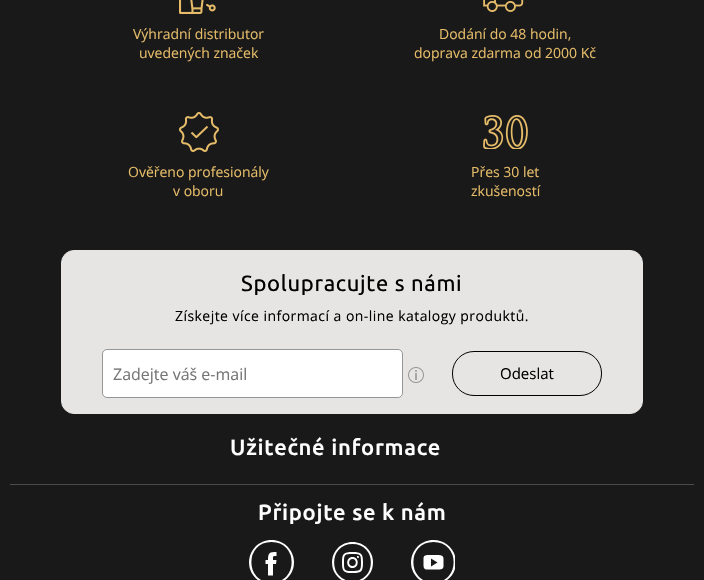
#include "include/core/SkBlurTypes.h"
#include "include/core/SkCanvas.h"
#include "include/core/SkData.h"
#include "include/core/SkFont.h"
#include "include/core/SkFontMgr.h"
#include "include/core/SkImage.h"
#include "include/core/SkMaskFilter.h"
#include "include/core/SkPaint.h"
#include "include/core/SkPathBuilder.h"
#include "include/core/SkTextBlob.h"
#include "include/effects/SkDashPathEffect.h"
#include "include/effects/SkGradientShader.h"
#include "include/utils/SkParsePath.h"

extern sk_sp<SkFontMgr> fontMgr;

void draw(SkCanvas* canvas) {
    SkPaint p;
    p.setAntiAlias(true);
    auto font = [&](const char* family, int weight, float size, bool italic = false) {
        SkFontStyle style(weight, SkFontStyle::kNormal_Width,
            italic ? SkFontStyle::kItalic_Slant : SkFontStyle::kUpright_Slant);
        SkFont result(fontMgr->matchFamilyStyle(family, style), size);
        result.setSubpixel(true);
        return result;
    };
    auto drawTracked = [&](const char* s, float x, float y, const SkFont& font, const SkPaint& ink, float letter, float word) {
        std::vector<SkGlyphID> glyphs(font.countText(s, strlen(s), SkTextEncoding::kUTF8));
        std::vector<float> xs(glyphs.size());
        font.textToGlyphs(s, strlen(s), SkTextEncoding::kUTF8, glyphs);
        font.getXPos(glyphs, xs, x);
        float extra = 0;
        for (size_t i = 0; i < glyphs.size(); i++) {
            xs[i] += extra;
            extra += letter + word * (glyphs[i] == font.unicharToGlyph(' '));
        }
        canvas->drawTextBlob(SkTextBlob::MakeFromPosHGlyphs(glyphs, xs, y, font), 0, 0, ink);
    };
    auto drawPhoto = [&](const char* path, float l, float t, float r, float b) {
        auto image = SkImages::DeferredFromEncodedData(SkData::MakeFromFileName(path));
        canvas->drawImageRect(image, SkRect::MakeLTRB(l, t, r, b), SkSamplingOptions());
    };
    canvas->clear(0xFF191919);
    drawPhoto("media/1.png", 179, 0, 216, 14);
    auto font1 = font("Open Sans", 400, 14);
    p.setColor(0xFFE6BC69);
    canvas->drawString("Výhradní distributor", 133, 39, font1, p);
    canvas->drawString("uvedených značek", 139, 58, font1, p);
    drawPhoto("media/2.png", 483, 0, 524, 12);
    canvas->drawString("Dodání do 48 hodin,", 439, 39, font1, p);
    canvas->drawString("doprava zdarma od 2000 Kč", 414, 58, font1, p);
    drawPhoto("media/3.png", 179, 112, 219, 152);
    canvas->drawString("Ověřeno profesionály", 128, 177, font1, p);
    canvas->drawString("v oboru", 173, 196, font1, p);
    drawPhoto("media/4.png", 483, 115, 528, 149);
    canvas->drawString("Přes 30 let", 471, 177, font1, p);
    canvas->drawString("zkušeností", 471, 196, font1, p);
    p.setColor(0xFFE7E5E3);
    canvas->drawRoundRect(SkRect::MakeLTRB(61.5f, 250.5f, 642.5f, 413.5f), 12.5f, 12.5f, p);
    p.setStyle(SkPaint::kStroke_Style);
    p.setStrokeWidth(1);
    canvas->drawRoundRect(SkRect::MakeLTRB(61.5f, 250.5f, 642.5f, 413.5f), 12.5f, 12.5f, p);
    auto font2 = font("Ubuntu", 400, 22);
    p.setStyle(SkPaint::kFill_Style);
    p.setColor(0xFF000000);
    drawTracked("Spolupracujte s námi", 241, 291, font2, p, 0.7f, 0);
    drawTracked("Získejte více informací a on-line katalogy produktů.", 175, 321, font1, p, 0.45f, 0);
    p.setColor(0xFFFFFFFF);
    canvas->drawRoundRect(SkRect::MakeLTRB(102.5f, 349.5f, 402.5f, 397.5f), 4.5f, 4.5f, p);
    p.setStyle(SkPaint::kStroke_Style);
    p.setColor(0xFF969696);
    canvas->drawRoundRect(SkRect::MakeLTRB(102.5f, 349.5f, 402.5f, 397.5f), 4.5f, 4.5f, p);
    auto font3 = font("Open Sans", 400, 16);
    p.setStyle(SkPaint::kFill_Style);
    p.setColor(0xFF757575);
    canvas->drawString("Zadejte váš e-mail", 113, 380, font3, p);
    drawPhoto("media/5.png", 408, 367, 424, 383);
    p.setStyle(SkPaint::kStroke_Style);
    p.setColor(0xFF000000);
    canvas->drawRoundRect(SkRect::MakeLTRB(452.5f, 351.5f, 601.5f, 395.5f), 21.5f, 21.5f, p);
    auto font4 = font("Open Sans", 400, 15);
    p.setStyle(SkPaint::kFill_Style);
    canvas->drawString("Odeslat", 500, 379, font4, p);
    auto font5 = font("Ubuntu", 500, 22);
    p.setColor(0xFFFFFFFF);
    drawTracked("Užitečné informace", 230, 455, font5, p, 0.7f, 0);
    p.setColor(0xFF4B4B4B);
    canvas->drawRect(SkRect::MakeLTRB(10, 484, 694, 485), p);
    p.setColor(0xFFFFFFFF);
    drawTracked("Připojte se k nám", 258, 520, font5, p, 0.7f, 0);
    canvas->save();
    canvas->clipPath(SkPathBuilder().moveTo(271.5f, 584.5f).cubicTo(284, 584.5f, 294, 574.5f, 294, 562.5f).cubicTo(294, 550, 284, 540, 271.5f, 540).cubicTo(259, 540, 249, 550, 249, 562.5f).cubicTo(249, 574.5f, 259, 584.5f, 271.5f, 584.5f).close().detach(), true);
    p.setStyle(SkPaint::kStroke_Style);
    p.setStrokeWidth(4);
    canvas->drawPath(SkPathBuilder().moveTo(271.5f, 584.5f).cubicTo(301, 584.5f, 301, 540, 271.5f, 540).cubicTo(242, 540, 242, 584.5f, 271.5f, 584.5f).close().detach(), p);
    canvas->restore();
    p.setStyle(SkPaint::kFill_Style);
    canvas->drawPath(SkPathBuilder().moveTo(273, 575.5f).lineTo(273, 564).lineTo(276, 564).lineTo(276.5f, 560).lineTo(273, 560).cubicTo(273, 556, 272.5f, 556, 276.5f, 556).lineTo(276.5f, 552).cubicTo(269.5f, 552, 268, 552.5f, 268, 560).lineTo(265.5f, 560).lineTo(265.5f, 564).lineTo(268, 564).lineTo(268, 575.5f).close().detach(), p);
    canvas->save();
    canvas->clipPath(SkPathBuilder().moveTo(352.5f, 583).cubicTo(364, 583, 373, 574, 373, 562.5f).cubicTo(373, 551, 364, 542, 352.5f, 542).cubicTo(341, 542, 332, 551, 332, 562.5f).cubicTo(332, 574, 341, 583, 352.5f, 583).close().detach(), true);
    p.setStyle(SkPaint::kStroke_Style);
    p.setStrokeWidth(3.8f);
    canvas->drawPath(SkPathBuilder().moveTo(352.5f, 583).cubicTo(379.5f, 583, 379.5f, 542, 352.5f, 542).cubicTo(325.5f, 542, 325.5f, 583, 352.5f, 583).close().detach(), p);
    canvas->restore();
    p.setStyle(SkPaint::kFill_Style);
    canvas->drawPath(SkPathBuilder(SkPathFillType::kEvenOdd).moveTo(352.5f, 552).cubicTo(361.5f, 552, 363, 553.5f, 363, 562.5f).cubicTo(363, 572.5f, 361, 573, 351.5f, 573).cubicTo(343, 573, 342, 570.5f, 342, 562.5f).cubicTo(342, 553.5f, 343.5f, 552, 352.5f, 552).close().moveTo(352.5f, 554).cubicTo(344.5f, 554, 344, 554.5f, 344, 562.5f).cubicTo(344, 569.5f, 344, 571, 351.5f, 571).cubicTo(360, 571, 361, 571, 361, 562.5f).cubicTo(361, 554.5f, 360.5f, 554, 352.5f, 554).close().moveTo(359, 557).cubicTo(359, 555.5f, 356.5f, 555.5f, 357, 557).cubicTo(357, 558.5f, 359, 558.5f, 359, 557).close().moveTo(352.5f, 557).cubicTo(359.5f, 557, 359.5f, 568, 352.5f, 568).cubicTo(345.5f, 568, 345.5f, 557, 352.5f, 557).close().moveTo(352.5f, 566).cubicTo(357, 566, 357, 559, 352.5f, 559).cubicTo(348, 559, 348, 566, 352.5f, 566).close().detach(), p);
    canvas->save();
    canvas->clipRect(SkRect::MakeLTRB(411, 540, 455, 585));
    canvas->clipPath(SkPathBuilder().moveTo(433.5f, 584.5f).cubicTo(446, 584.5f, 456, 574.5f, 456, 562.5f).cubicTo(456, 550, 446, 540, 433.5f, 540).cubicTo(421, 540, 411, 550, 411, 562.5f).cubicTo(411, 574.5f, 421, 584.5f, 433.5f, 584.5f).close().detach(), true);
    p.setStyle(SkPaint::kStroke_Style);
    p.setStrokeWidth(4);
    canvas->drawPath(SkPathBuilder().moveTo(433.5f, 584.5f).cubicTo(463, 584.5f, 463, 540, 433.5f, 540).cubicTo(404, 540, 404, 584.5f, 433.5f, 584.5f).close().detach(), p);
    canvas->restore();
    p.setStyle(SkPaint::kFill_Style);
    canvas->drawPath(SkPathBuilder(SkPathFillType::kEvenOdd).moveTo(443.5f, 566).cubicTo(443.5f, 569.5f, 440.5f, 569.5f, 438, 569.5f).lineTo(431.5f, 569.5f).cubicTo(426.5f, 569.5f, 423.5f, 570.5f, 423.5f, 565).lineTo(423.5f, 558.5f).cubicTo(423.5f, 555, 426.5f, 555, 429, 555).lineTo(438, 555).cubicTo(440.5f, 555, 443.5f, 555.5f, 443.5f, 558.5f).close().moveTo(437.5f, 562.5f).lineTo(431, 558.5f).lineTo(431, 566.5f).close().detach(), p);
}
